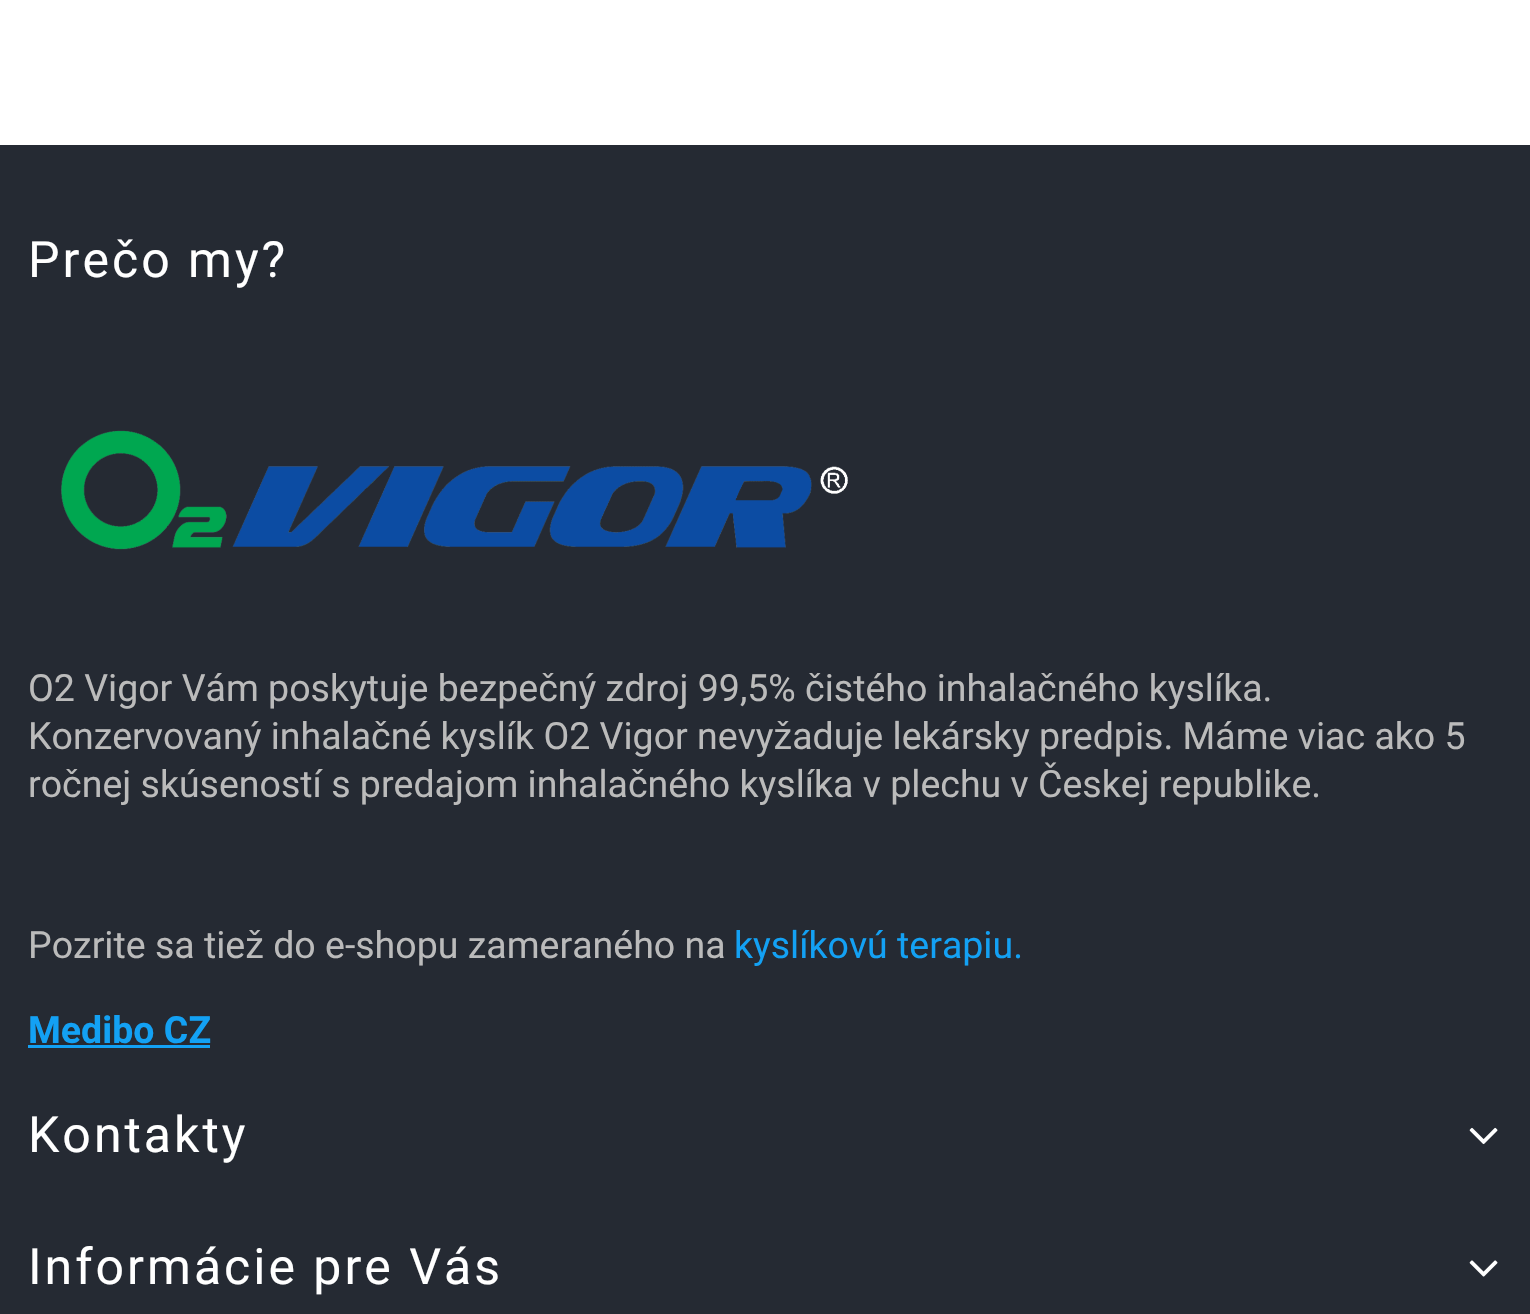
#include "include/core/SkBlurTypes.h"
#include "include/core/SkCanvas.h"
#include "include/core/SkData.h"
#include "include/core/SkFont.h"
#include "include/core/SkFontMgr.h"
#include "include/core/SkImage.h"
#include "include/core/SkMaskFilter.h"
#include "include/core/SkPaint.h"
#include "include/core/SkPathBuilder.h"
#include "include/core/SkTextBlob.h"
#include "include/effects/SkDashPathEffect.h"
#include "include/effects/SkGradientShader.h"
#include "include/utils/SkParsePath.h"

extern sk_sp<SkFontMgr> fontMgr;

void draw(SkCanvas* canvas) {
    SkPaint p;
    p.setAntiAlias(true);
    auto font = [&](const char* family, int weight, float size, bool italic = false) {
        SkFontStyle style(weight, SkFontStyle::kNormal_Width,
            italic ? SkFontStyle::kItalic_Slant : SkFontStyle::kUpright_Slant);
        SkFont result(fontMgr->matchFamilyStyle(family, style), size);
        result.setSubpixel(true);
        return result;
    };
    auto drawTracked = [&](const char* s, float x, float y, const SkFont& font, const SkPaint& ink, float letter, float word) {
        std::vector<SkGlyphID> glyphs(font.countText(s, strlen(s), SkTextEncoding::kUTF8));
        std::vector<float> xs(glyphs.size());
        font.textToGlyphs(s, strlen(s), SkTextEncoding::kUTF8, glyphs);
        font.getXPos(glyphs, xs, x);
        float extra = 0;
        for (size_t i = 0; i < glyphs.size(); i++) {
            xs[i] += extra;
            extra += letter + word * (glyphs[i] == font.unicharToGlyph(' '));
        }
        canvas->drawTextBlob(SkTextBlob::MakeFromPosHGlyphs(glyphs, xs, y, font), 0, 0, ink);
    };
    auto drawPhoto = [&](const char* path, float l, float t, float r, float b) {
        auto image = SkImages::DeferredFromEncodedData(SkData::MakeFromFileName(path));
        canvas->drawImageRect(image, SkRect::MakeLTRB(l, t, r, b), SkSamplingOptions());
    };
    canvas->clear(0xFFFFFFFF);
    p.setColor(0xFF252A33);
    canvas->drawRect(SkRect::MakeLTRB(0, 145, 1530, 1314), p);
    auto font1 = font("Roboto", 400, 50);
    p.setColor(0xFFFFFFFF);
    drawTracked("Prečo my?", 28, 277, font1, p, 3, 0);
    drawPhoto("media/1.png", 61, 430, 848, 550);
    auto font2 = font("Roboto", 400, 37.5f);
    p.setColor(0xFFBBBBBB);
    {
        const struct { const char* s; float x, y; } items[] = {
            {"O2 Vigor Vám poskytuje bezpečný zdroj 99,5% čistého inhalačného kyslíka.", 28, 701},
            {"Konzervovaný inhalačné kyslík O2 Vigor nevyžaduje lekársky predpis. Máme viac ako 5", 28, 749},
            {"ročnej skúseností s predajom inhalačného kyslíka v plechu v Českej republike.", 28, 797},
            {"Pozrite sa tiež do e-shopu zameraného na", 28, 958},
        };
        for (auto [s, x, y] : items) {
            canvas->drawString(s, x, y, font2, p);
        }
    }
    p.setColor(0xFF13A1F4);
    canvas->drawString("kyslíkovú terapiu.", 734, 958, font2, p);
    auto font3 = font("Roboto", 700, 37.5f);
    canvas->drawString("Medibo CZ", 28, 1043, font3, p);
    canvas->drawRect(SkRect::MakeLTRB(28, 1045, 210, 1048), p);
    p.setColor(0xFFFFFFFF);
    drawTracked("Kontakty", 28, 1152, font1, p, 3, 0);
    drawPhoto("media/2.png", 1469, 1127, 1498, 1145);
    drawTracked("Informácie pre Vás", 28, 1284, font1, p, 3, 0);
    drawPhoto("media/3.png", 1469, 1260, 1498, 1277);
}
